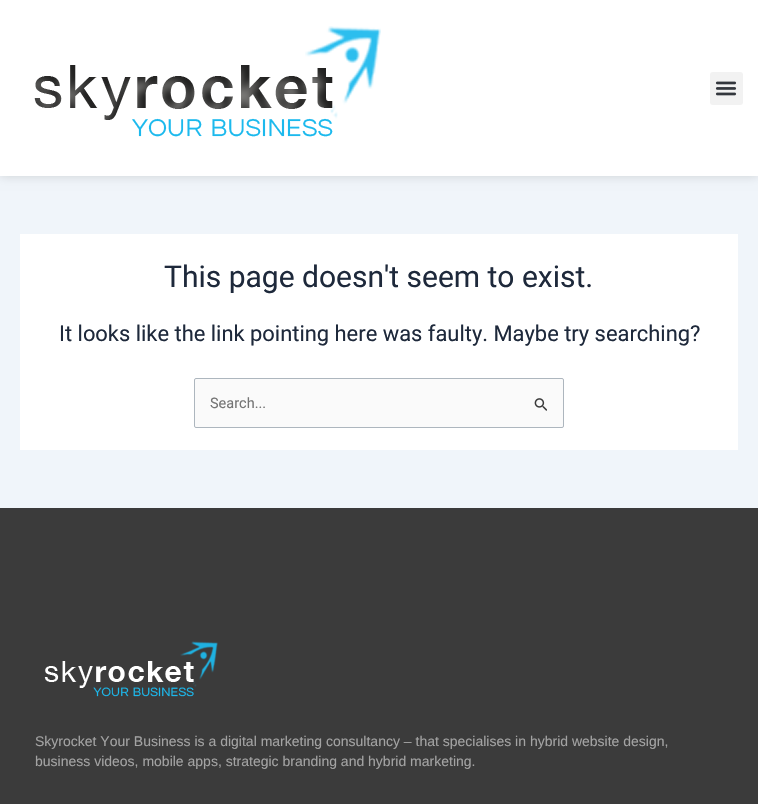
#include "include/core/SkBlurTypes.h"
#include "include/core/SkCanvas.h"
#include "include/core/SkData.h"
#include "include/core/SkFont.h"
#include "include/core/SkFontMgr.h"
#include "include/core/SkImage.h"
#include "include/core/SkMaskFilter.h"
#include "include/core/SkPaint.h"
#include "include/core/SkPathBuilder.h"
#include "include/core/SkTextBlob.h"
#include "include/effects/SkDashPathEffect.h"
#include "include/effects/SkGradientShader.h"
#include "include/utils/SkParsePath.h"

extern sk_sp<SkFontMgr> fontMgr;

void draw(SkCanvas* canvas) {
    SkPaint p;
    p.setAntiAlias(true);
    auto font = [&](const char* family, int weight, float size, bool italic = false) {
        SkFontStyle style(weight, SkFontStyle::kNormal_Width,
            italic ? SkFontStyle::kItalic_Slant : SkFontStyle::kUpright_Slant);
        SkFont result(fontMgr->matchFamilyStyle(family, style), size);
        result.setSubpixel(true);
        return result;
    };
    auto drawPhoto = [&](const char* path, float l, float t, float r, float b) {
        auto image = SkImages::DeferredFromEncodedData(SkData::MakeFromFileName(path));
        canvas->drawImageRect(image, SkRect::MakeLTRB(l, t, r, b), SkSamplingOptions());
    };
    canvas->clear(0xFFF0F5FA);
    p.setColor(0x26000000);
    p.setMaskFilter(SkMaskFilter::MakeBlur(kNormal_SkBlurStyle, 5));
    canvas->drawRect(SkRect::MakeLTRB(0, 0, 758, 176), p);
    p.setMaskFilter(nullptr);
    p.setColor(0xFFFFFFFF);
    canvas->drawRect(SkRect::MakeLTRB(0, 0, 758, 176), p);
    drawPhoto("media/1.png", 34, 26, 381, 137);
    p.setColor(0xFFF2F2F2);
    canvas->drawRoundRect(SkRect::MakeLTRB(710, 72, 743, 105), 3, 3, p);
    drawPhoto("media/2.png", 715, 81, 737, 96);
    p.setColor(0xFFFFFFFF);
    canvas->drawRect(SkRect::MakeLTRB(20, 234, 738, 450), p);
    auto font1 = font("Roboto", 400, 30);
    p.setColor(0xFF1E293B);
    canvas->drawString("This page doesn't seem to exist.", 164, 287, font1, p);
    auto font2 = font("Roboto", 400, 21.9f);
    canvas->drawString("It looks like the link pointing here was faulty. Maybe try searching?", 59, 341, font2, p);
    p.setColor(0xFFFAFAFA);
    canvas->drawRoundRect(SkRect::MakeLTRB(194.5f, 378.5f, 563.5f, 427.5f), 1.5f, 1.5f, p);
    p.setStyle(SkPaint::kStroke_Style);
    p.setStrokeWidth(1);
    p.setColor(0xFFADB6BE);
    canvas->drawRoundRect(SkRect::MakeLTRB(194.5f, 378.5f, 563.5f, 427.5f), 1.5f, 1.5f, p);
    auto font3 = font("Roboto", 400, 14.5f);
    p.setStyle(SkPaint::kFill_Style);
    p.setColor(0xFF757575);
    canvas->drawString("Search...", 210, 408, font3, p);
    drawPhoto("media/3.png", 534, 398, 547, 411);
    p.setColor(0xFF3B3B3B);
    canvas->drawRect(SkRect::MakeLTRB(0, 508, 758, 804), p);
    drawPhoto("media/4.png", 44, 641, 218, 697);
    auto font4 = font("Liberation Sans", 400, 14);
    p.setColor(0xFFA3A3A3);
    canvas->drawString("Skyrocket Your Business is a digital marketing consultancy – that specialises in hybrid website design,", 35, 746, font4, p);
    canvas->drawString("business videos, mobile apps, strategic branding and hybrid marketing.", 35, 766, font4, p);
}
